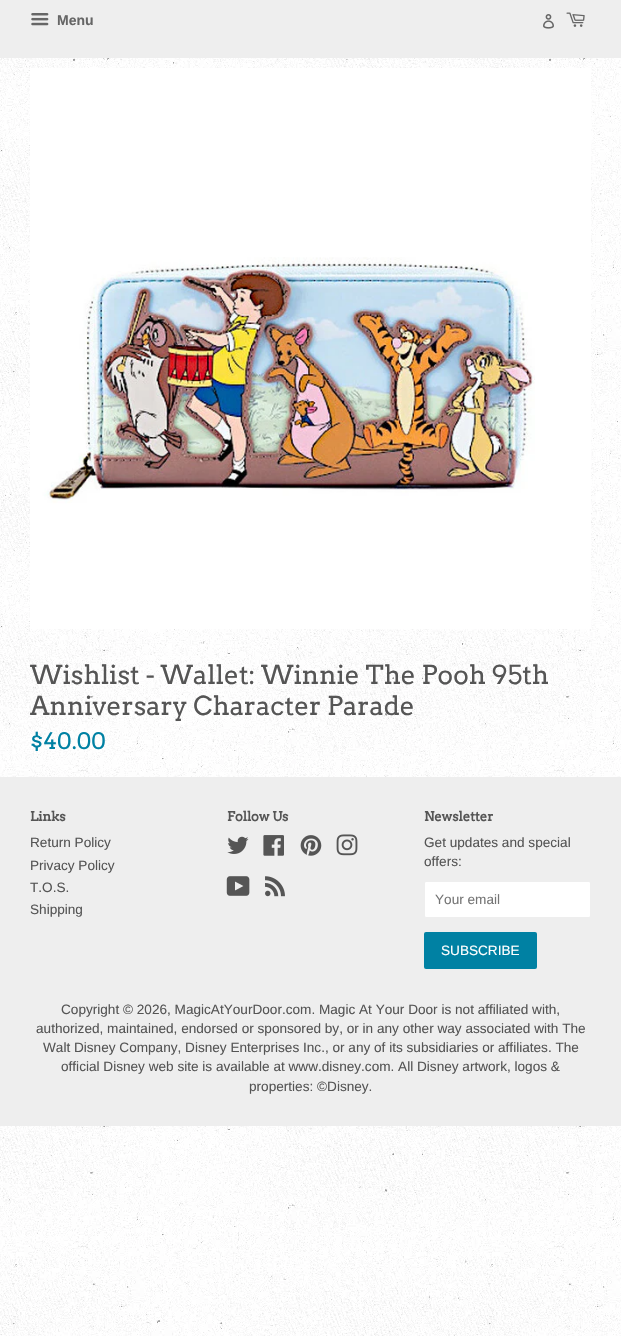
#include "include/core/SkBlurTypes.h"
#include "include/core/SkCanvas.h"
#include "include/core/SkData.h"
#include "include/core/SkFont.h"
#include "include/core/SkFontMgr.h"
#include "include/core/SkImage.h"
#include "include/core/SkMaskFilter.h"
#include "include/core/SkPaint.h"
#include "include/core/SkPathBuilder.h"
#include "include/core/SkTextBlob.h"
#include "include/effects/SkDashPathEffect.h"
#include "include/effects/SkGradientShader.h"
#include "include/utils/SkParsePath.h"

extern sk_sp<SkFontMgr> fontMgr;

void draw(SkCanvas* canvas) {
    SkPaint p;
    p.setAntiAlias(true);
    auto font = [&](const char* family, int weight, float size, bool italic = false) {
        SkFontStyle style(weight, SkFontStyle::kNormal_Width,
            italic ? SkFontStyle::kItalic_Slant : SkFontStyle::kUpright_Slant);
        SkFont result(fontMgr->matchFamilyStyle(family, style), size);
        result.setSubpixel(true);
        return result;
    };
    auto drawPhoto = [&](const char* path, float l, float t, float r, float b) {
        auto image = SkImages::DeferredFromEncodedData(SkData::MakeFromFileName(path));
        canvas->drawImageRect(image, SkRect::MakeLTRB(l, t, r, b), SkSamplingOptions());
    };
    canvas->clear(0xFFFFFFFF);
    drawPhoto("media/1.png", 0, 1126, 621, 1336);
    drawPhoto("media/2.png", 0, 58, 621, 777);
    p.setColor(0xFFEEEEEE);
    canvas->drawRect(SkRect::MakeLTRB(0, 0, 621, 58), p);
    drawPhoto("media/3.png", 31, 13, 49, 26);
    auto font1 = font("Liberation Sans", 700, 14);
    p.setColor(0xFF666666);
    canvas->drawString("Menu", 57, 25, font1, p);
    drawPhoto("media/4.png", 543, 14, 554, 29);
    drawPhoto("media/5.png", 566, 12, 585, 27);
    drawPhoto("media/6.png", 30, 68, 591, 629);
    auto font2 = font("Arvo", 400, 26);
    p.setColor(0xFF555555);
    canvas->drawString("Wishlist - Wallet: Winnie The Pooh 95th", 30, 684, font2, p);
    canvas->drawString("Anniversary Character Parade", 30, 715, font2, p);
    auto font3 = font("Arvo", 400, 22.5f);
    p.setColor(0xFF0081A3);
    canvas->drawString("$40.00", 30, 749, font3, p);
    p.setColor(0xFFEEEEEE);
    canvas->drawRect(SkRect::MakeLTRB(0, 777, 621, 1126), p);
    auto font4 = font("Arvo", 700, 13);
    p.setColor(0xFF555555);
    canvas->drawString("Links", 30, 821, font4, p);
    auto font5 = font("Liberation Sans", 400, 13.6f);
    {
        const struct { const char* s; float x, y; } items[] = {
            {"Return Policy", 30, 847},
            {"Privacy Policy", 30, 870},
            {"T.O.S.", 30, 892},
            {"Shipping", 30, 914},
        };
        for (auto [s, x, y] : items) {
            canvas->drawString(s, x, y, font5, p);
        }
    }
    canvas->drawString("Follow Us", 227, 821, font4, p);
    drawPhoto("media/7.png", 227, 836, 249, 854);
    drawPhoto("media/8.png", 263, 835, 284, 856);
    drawPhoto("media/9.png", 300, 835, 322, 856);
    drawPhoto("media/10.png", 336, 834, 358, 856);
    drawPhoto("media/11.png", 226, 876, 250, 896);
    drawPhoto("media/12.png", 265, 876, 285, 897);
    canvas->drawString("Newsletter", 424, 821, font4, p);
    canvas->drawString("Get updates and special", 424, 847, font5, p);
    canvas->drawString("offers:", 424, 866, font5, p);
    p.setColor(0xFFFFFFFF);
    canvas->drawRoundRect(SkRect::MakeLTRB(424.5f, 881.5f, 590.5f, 917.5f), 1.5f, 1.5f, p);
    p.setStyle(SkPaint::kStroke_Style);
    p.setStrokeWidth(1);
    p.setColor(0xFFEEEEEE);
    canvas->drawRoundRect(SkRect::MakeLTRB(424.5f, 881.5f, 590.5f, 917.5f), 1.5f, 1.5f, p);
    p.setStyle(SkPaint::kFill_Style);
    p.setColor(0xFF757575);
    canvas->drawString("Your email", 435, 904, font5, p);
    p.setColor(0xFF0081A3);
    canvas->drawRoundRect(SkRect::MakeLTRB(424, 932, 537, 969), 2, 2, p);
    p.setColor(0xFFFFFFFF);
    canvas->drawString("SUBSCRIBE", 441, 955, font5, p);
    p.setColor(0xFF555555);
    {
        const struct { const char* s; float x, y; } items[] = {
            {"Copyright © 2026, MagicAtYourDoor.com. Magic At Your Door is not affiliated with,", 61, 1014},
            {"authorized, maintained, endorsed or sponsored by, or in any other way associated with The", 36, 1033},
            {"Walt Disney Company, Disney Enterprises Inc., or any of its subsidiaries or affiliates. The", 43, 1052},
            {"official Disney web site is available at www.disney.com. All Disney artwork, logos &", 61, 1071},
            {"properties: ©Disney.", 249, 1091},
        };
        for (auto [s, x, y] : items) {
            canvas->drawString(s, x, y, font5, p);
        }
    }
}
